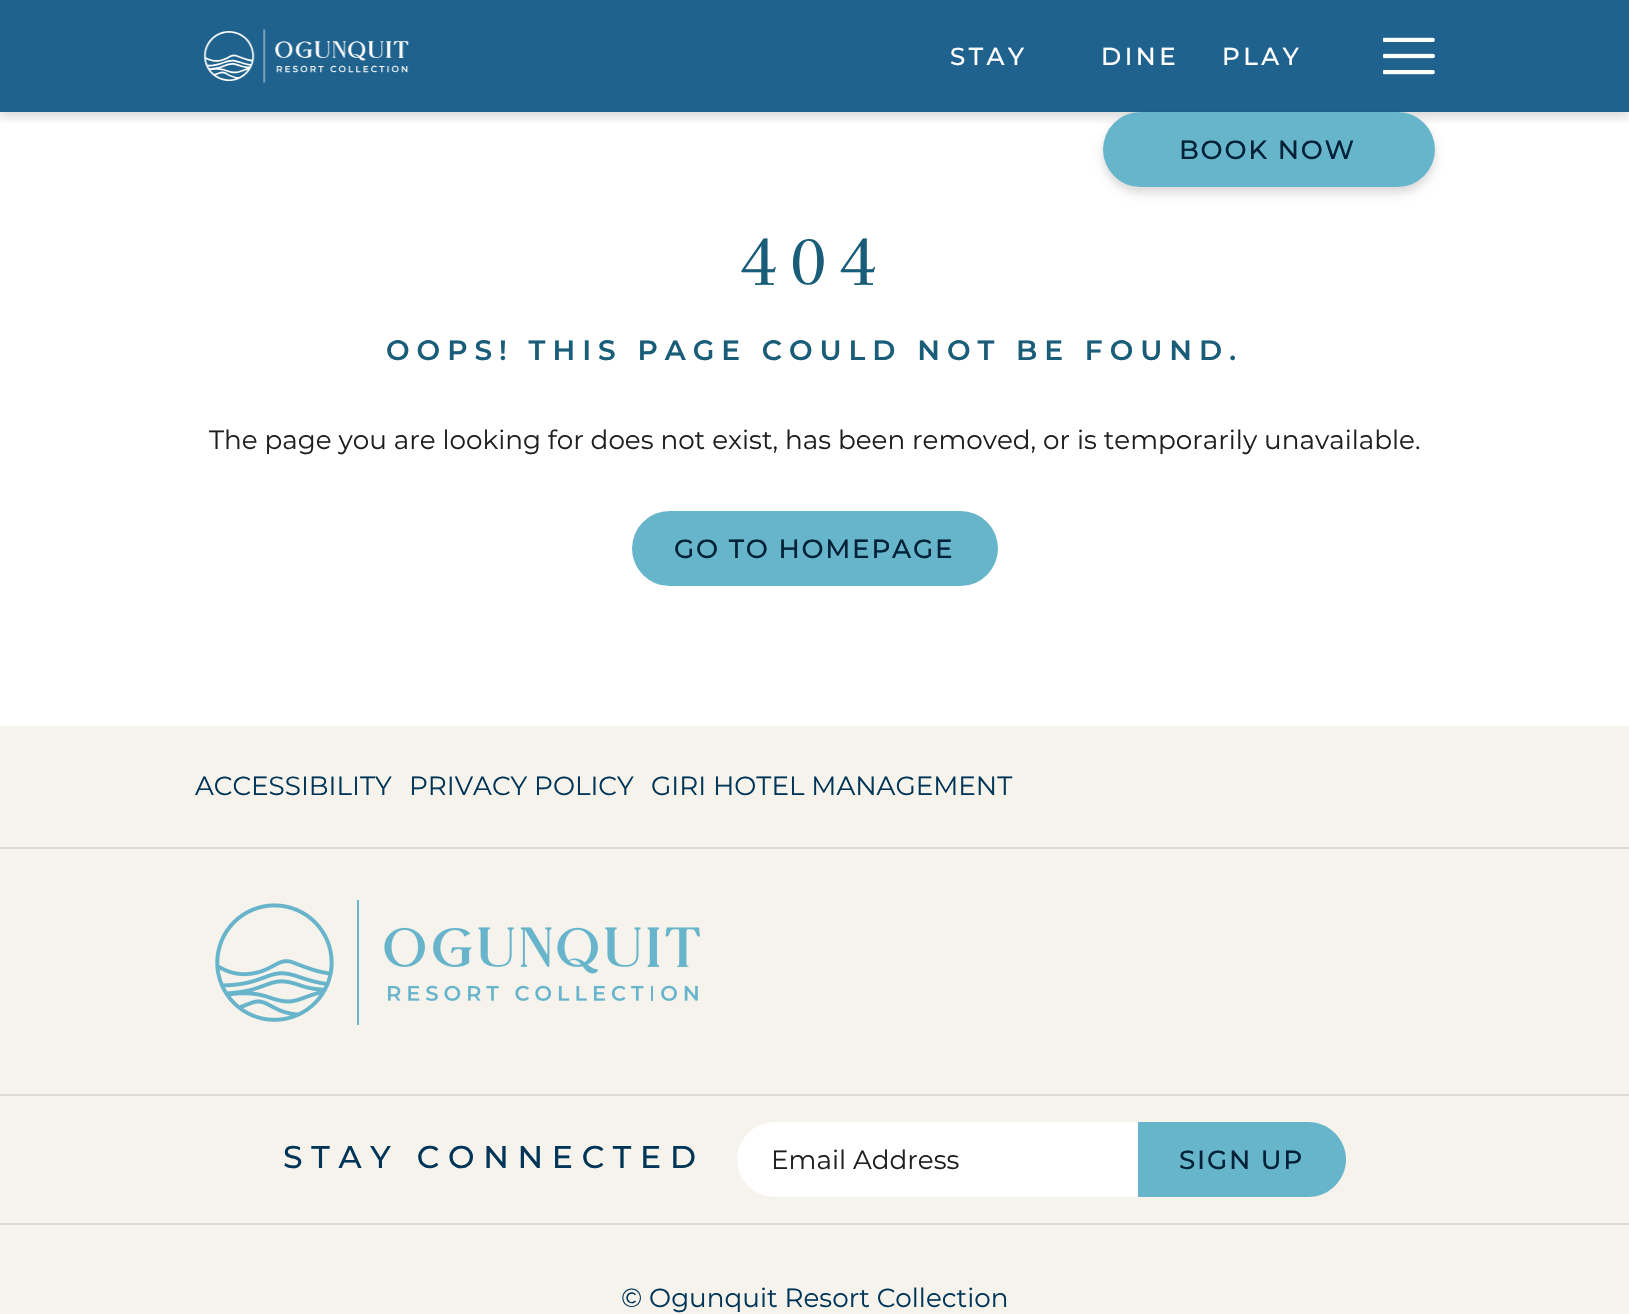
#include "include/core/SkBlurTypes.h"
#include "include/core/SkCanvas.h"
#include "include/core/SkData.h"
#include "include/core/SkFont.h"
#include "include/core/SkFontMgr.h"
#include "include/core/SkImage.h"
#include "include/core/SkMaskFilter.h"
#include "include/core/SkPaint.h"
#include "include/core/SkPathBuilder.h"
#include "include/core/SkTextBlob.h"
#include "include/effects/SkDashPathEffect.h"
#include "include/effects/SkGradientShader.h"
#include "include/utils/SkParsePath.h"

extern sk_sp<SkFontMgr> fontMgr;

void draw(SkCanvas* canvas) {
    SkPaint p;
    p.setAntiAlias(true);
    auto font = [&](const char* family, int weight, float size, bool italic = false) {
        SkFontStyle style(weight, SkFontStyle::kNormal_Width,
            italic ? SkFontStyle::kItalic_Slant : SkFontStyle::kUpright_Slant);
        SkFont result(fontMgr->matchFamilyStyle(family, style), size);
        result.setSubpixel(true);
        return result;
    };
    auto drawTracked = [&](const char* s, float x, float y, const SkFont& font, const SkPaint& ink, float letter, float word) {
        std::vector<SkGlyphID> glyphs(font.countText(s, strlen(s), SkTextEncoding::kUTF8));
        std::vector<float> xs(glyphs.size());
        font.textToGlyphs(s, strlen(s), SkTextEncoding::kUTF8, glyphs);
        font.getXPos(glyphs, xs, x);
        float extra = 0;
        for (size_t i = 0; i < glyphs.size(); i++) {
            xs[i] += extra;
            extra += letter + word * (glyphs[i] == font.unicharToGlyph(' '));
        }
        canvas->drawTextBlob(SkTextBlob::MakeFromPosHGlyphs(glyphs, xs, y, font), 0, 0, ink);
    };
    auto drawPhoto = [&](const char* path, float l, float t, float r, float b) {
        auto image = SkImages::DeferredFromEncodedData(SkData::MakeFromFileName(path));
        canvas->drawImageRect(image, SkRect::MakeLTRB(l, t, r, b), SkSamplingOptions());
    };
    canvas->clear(0xFF1F628E);
    p.setColor(0xFFFFFFFF);
    canvas->drawRect(SkRect::MakeLTRB(0, 112, 1629, 726), p);
    canvas->save();
    canvas->clipRect(SkRect::MakeLTRB(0, 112, 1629, 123));
    p.setColor(0x26000000);
    p.setMaskFilter(SkMaskFilter::MakeBlur(kNormal_SkBlurStyle, 5));
    canvas->drawRect(SkRect::MakeLTRB(0, 5, 1629, 117), p);
    p.setMaskFilter(nullptr);
    canvas->restore();
    drawPhoto("media/1.png", 203, 29, 409, 83);
    auto font1 = font("Montserrat", 500, 24.5f);
    p.setColor(0xFFFFFFFF);
    {
        const struct { const char* s; float x, y; } items[] = {
            {"STAY", 950, 65},
            {"DINE", 1101, 65},
            {"PLAY", 1222, 65},
        };
        for (auto [s, x, y] : items) {
            drawTracked(s, x, y, font1, p, 3.5f, 0);
        }
    }
    drawPhoto("media/2.png", 1383, 37, 1435, 75);
    p.setColor(0x26000000);
    p.setMaskFilter(SkMaskFilter::MakeBlur(kNormal_SkBlurStyle, 5));
    canvas->drawRoundRect(SkRect::MakeLTRB(1103, 117, 1435, 193), 38, 38, p);
    p.setMaskFilter(nullptr);
    p.setColor(0xFF67B5CB);
    canvas->drawRoundRect(SkRect::MakeLTRB(1103, 112, 1435, 187), 37.5f, 37.5f, p);
    auto font2 = font("Montserrat", 500, 26.25f);
    p.setColor(0xFF002238);
    drawTracked("BOOK NOW", 1179, 159, font2, p, 1.75f, 0);
    auto font3 = font("Kaisei Decol", 400, 63);
    p.setColor(0xFF1A5D79);
    drawTracked("404", 740, 285, font3, p, 12.5f, 0);
    auto font4 = font("Montserrat", 600, 28);
    drawTracked("OOPS! THIS PAGE COULD NOT BE FOUND.", 386, 360, font4, p, 7, 0);
    auto font5 = font("Montserrat", 400, 26.25f);
    p.setColor(0xFF1F1F1F);
    canvas->drawString("The page you are looking for does not exist, has been removed, or is temporarily unavailable.", 209, 449, font5, p);
    p.setColor(0xFF67B5CB);
    canvas->drawRoundRect(SkRect::MakeLTRB(632, 511, 998, 586), 37.5f, 37.5f, p);
    p.setColor(0xFF002238);
    drawTracked("GO TO HOMEPAGE", 674, 558, font2, p, 1.75f, 0);
    p.setColor(0xFFF6F3ED);
    canvas->drawRect(SkRect::MakeLTRB(0, 726, 1629, 1314), p);
    p.setColor(0xFFDDDBD5);
    canvas->drawRect(SkRect::MakeLTRB(0, 847, 1629, 849), p);
    p.setColor(0xFF003558);
    {
        const struct { const char* s; float x, y; } items[] = {
            {"ACCESSIBILITY", 195, 795},
            {"PRIVACY POLICY", 409, 795},
            {"GIRI HOTEL MANAGEMENT", 651, 795},
        };
        for (auto [s, x, y] : items) {
            canvas->drawString(s, x, y, font5, p);
        }
    }
    p.setColor(0xFFDDDBD5);
    canvas->drawRect(SkRect::MakeLTRB(0, 1094, 1629, 1096), p);
    drawPhoto("media/3.png", 215, 900, 700, 1025);
    canvas->drawRect(SkRect::MakeLTRB(0, 1223, 1629, 1225), p);
    auto font6 = font("Montserrat", 500, 31.5f);
    p.setColor(0xFF003558);
    drawTracked("STAY CONNECTED", 283, 1168, font6, p, 8.75f, 0);
    p.setColor(0xFFFFFFFF);
    canvas->drawPath(SkPathBuilder().moveTo(774.5f, 1122).lineTo(1138, 1122).lineTo(1138, 1197).lineTo(774.5f, 1197).cubicTo(754, 1197, 737, 1180, 737, 1159.5f).cubicTo(737, 1139, 754, 1122, 774.5f, 1122).close().detach(), p);
    p.setColor(0xFF1F1F1F);
    canvas->drawString("Email Address", 771, 1169, font5, p);
    p.setColor(0xFF67B5CB);
    canvas->drawPath(SkPathBuilder().moveTo(1138, 1122).lineTo(1308.5f, 1122).cubicTo(1329, 1122, 1346, 1139, 1346, 1159.5f).cubicTo(1346, 1180, 1329, 1197, 1308.5f, 1197).lineTo(1138, 1197).close().detach(), p);
    p.setColor(0xFF002238);
    drawTracked("SIGN UP", 1179, 1169, font2, p, 1.75f, 0);
    p.setColor(0xFF003558);
    canvas->drawString("© Ogunquit Resort Collection", 621, 1307, font5, p);
}
